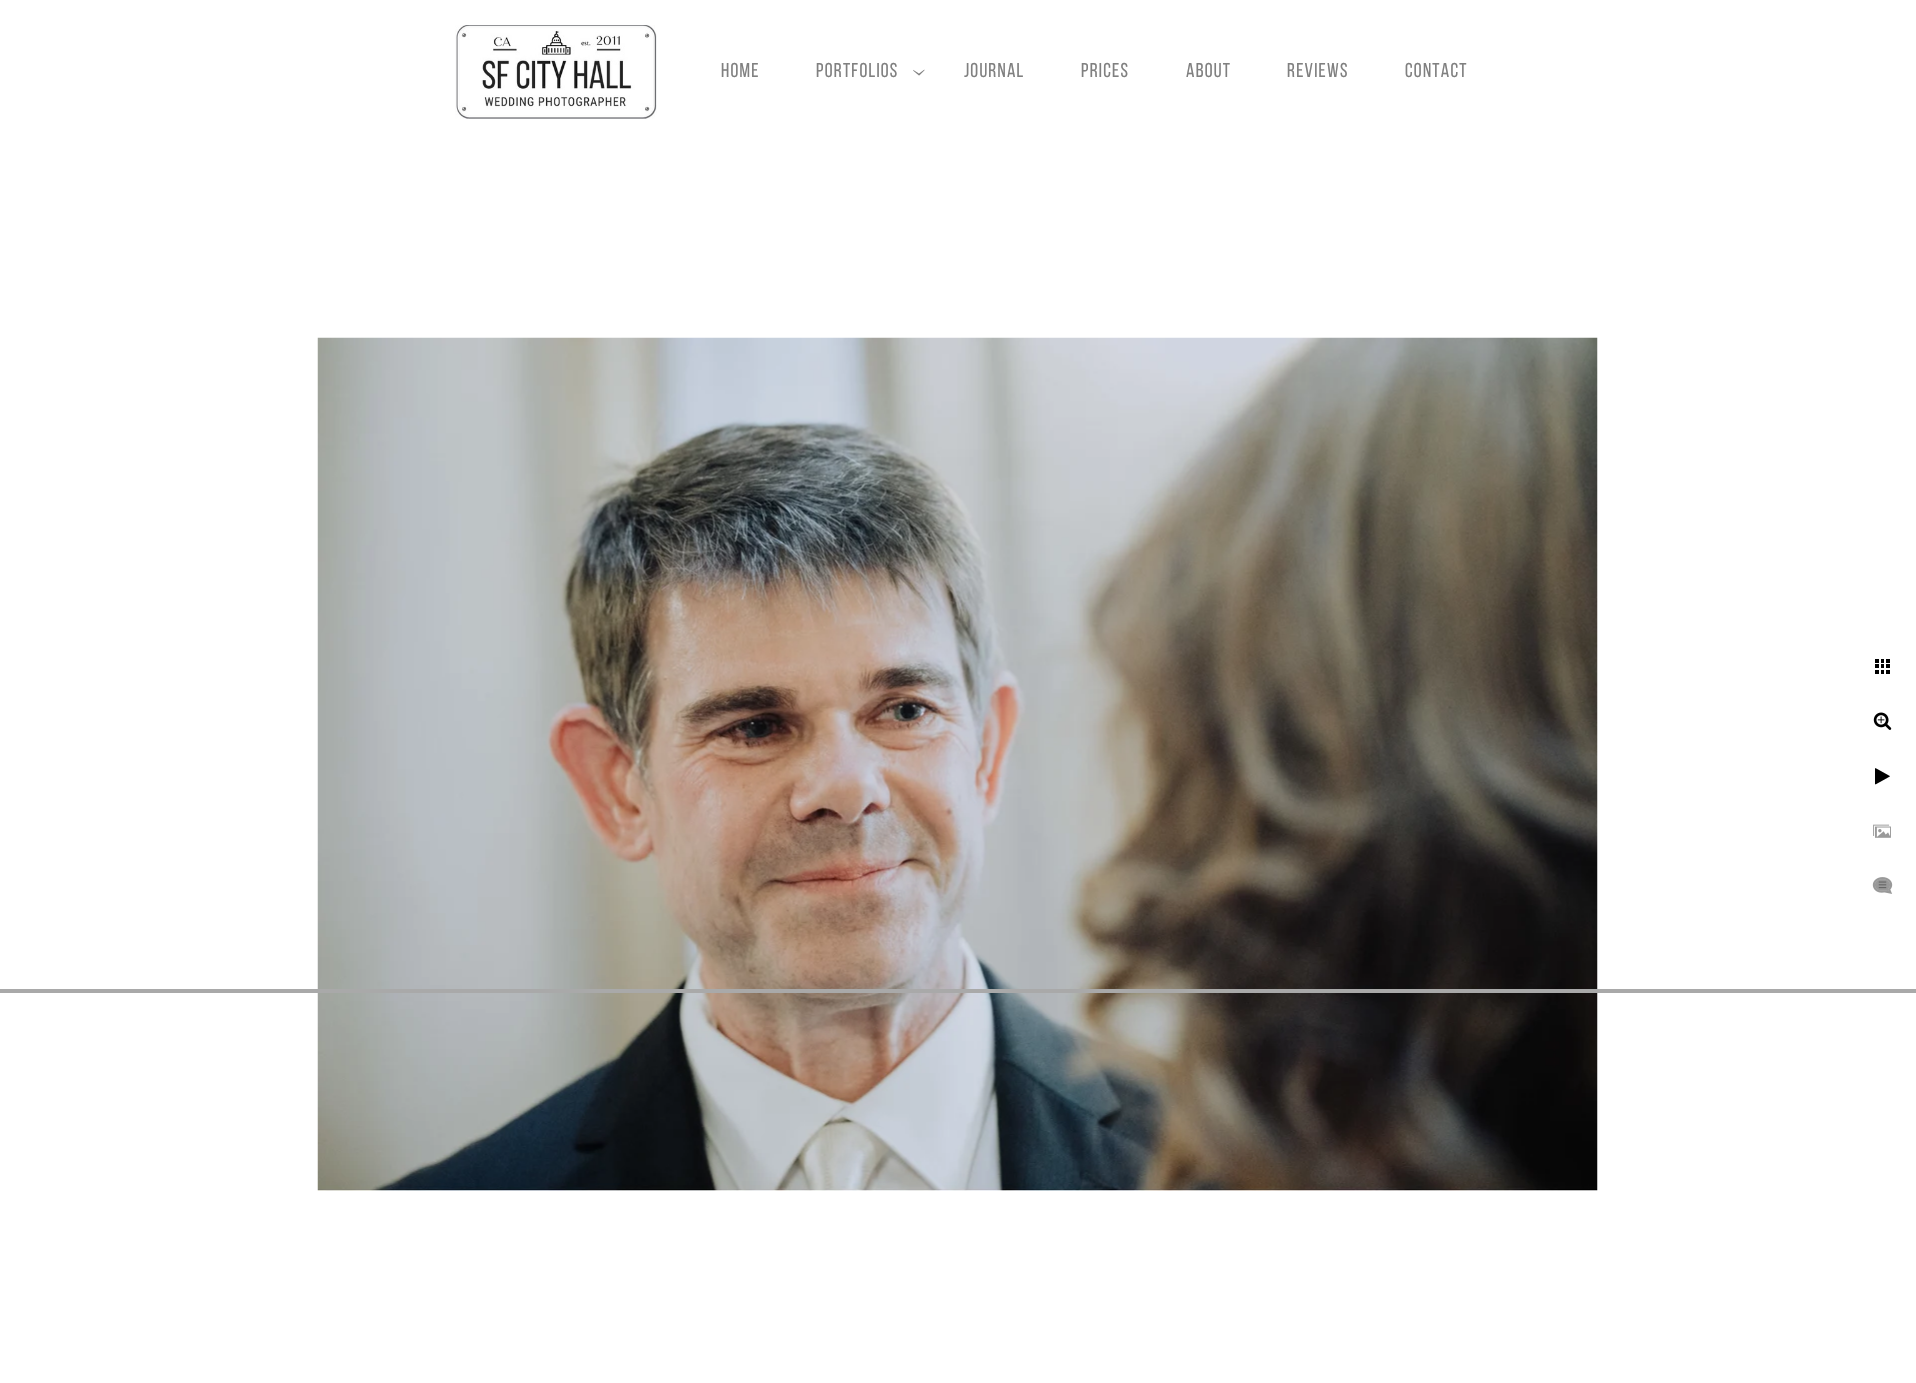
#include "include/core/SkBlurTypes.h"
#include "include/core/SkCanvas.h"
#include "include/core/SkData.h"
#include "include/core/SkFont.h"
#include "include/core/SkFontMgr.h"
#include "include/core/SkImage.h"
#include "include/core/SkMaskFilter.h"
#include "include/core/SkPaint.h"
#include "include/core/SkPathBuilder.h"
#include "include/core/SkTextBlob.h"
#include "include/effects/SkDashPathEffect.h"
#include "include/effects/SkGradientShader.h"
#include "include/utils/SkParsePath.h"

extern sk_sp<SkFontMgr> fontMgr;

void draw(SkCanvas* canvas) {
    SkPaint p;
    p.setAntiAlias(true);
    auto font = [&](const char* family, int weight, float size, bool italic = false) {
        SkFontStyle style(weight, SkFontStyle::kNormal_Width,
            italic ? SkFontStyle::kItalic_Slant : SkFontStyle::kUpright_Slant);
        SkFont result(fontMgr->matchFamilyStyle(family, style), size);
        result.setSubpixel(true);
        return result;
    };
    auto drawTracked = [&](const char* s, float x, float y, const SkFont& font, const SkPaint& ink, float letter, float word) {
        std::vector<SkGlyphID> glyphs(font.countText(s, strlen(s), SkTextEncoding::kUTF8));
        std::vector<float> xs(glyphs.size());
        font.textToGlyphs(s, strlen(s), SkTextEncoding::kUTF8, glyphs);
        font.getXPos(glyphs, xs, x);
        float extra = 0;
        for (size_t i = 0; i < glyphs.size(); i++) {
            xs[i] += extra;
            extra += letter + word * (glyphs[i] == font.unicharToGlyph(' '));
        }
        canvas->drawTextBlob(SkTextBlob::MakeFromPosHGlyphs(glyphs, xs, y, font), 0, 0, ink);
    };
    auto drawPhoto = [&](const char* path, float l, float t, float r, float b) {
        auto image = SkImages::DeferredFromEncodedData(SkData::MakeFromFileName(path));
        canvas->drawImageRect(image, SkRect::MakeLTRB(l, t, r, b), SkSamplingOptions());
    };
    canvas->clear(0xFFFFFFFF);
    drawPhoto("media/1.png", 455, 25, 657, 119);
    auto font1 = font("Bebas Neue", 400, 20);
    p.setColor(0xFF808080);
    drawTracked("Home", 721, 77, font1, p, 1.25f, 0);
    drawTracked("Portfolios", 816, 77, font1, p, 1.25f, 0);
    drawPhoto("media/2.png", 913, 69, 925, 76);
    {
        const struct { const char* s; float x, y; } items[] = {
            {"Journal", 964, 77},
            {"Prices", 1081, 77},
            {"About", 1186, 77},
            {"Reviews", 1287, 77},
            {"Contact", 1405, 77},
        };
        for (auto [s, x, y] : items) {
            drawTracked(s, x, y, font1, p, 1.25f, 0);
        }
    }
    drawPhoto("media/3.png", 317, 337, 1598, 1191);
    drawPhoto("media/4.png", 1875, 659, 1890, 674);
    drawPhoto("media/5.png", 1873, 712, 1892, 730);
    drawPhoto("media/6.png", 1875, 768, 1890, 785);
    drawPhoto("media/7.png", 1873, 824, 1891, 838);
    drawPhoto("media/8.png", 1872, 877, 1893, 894);
    p.setColor(0xFFA9A9A9);
    canvas->drawRect(SkRect::MakeLTRB(0, 989, 1916, 993), p);
}
